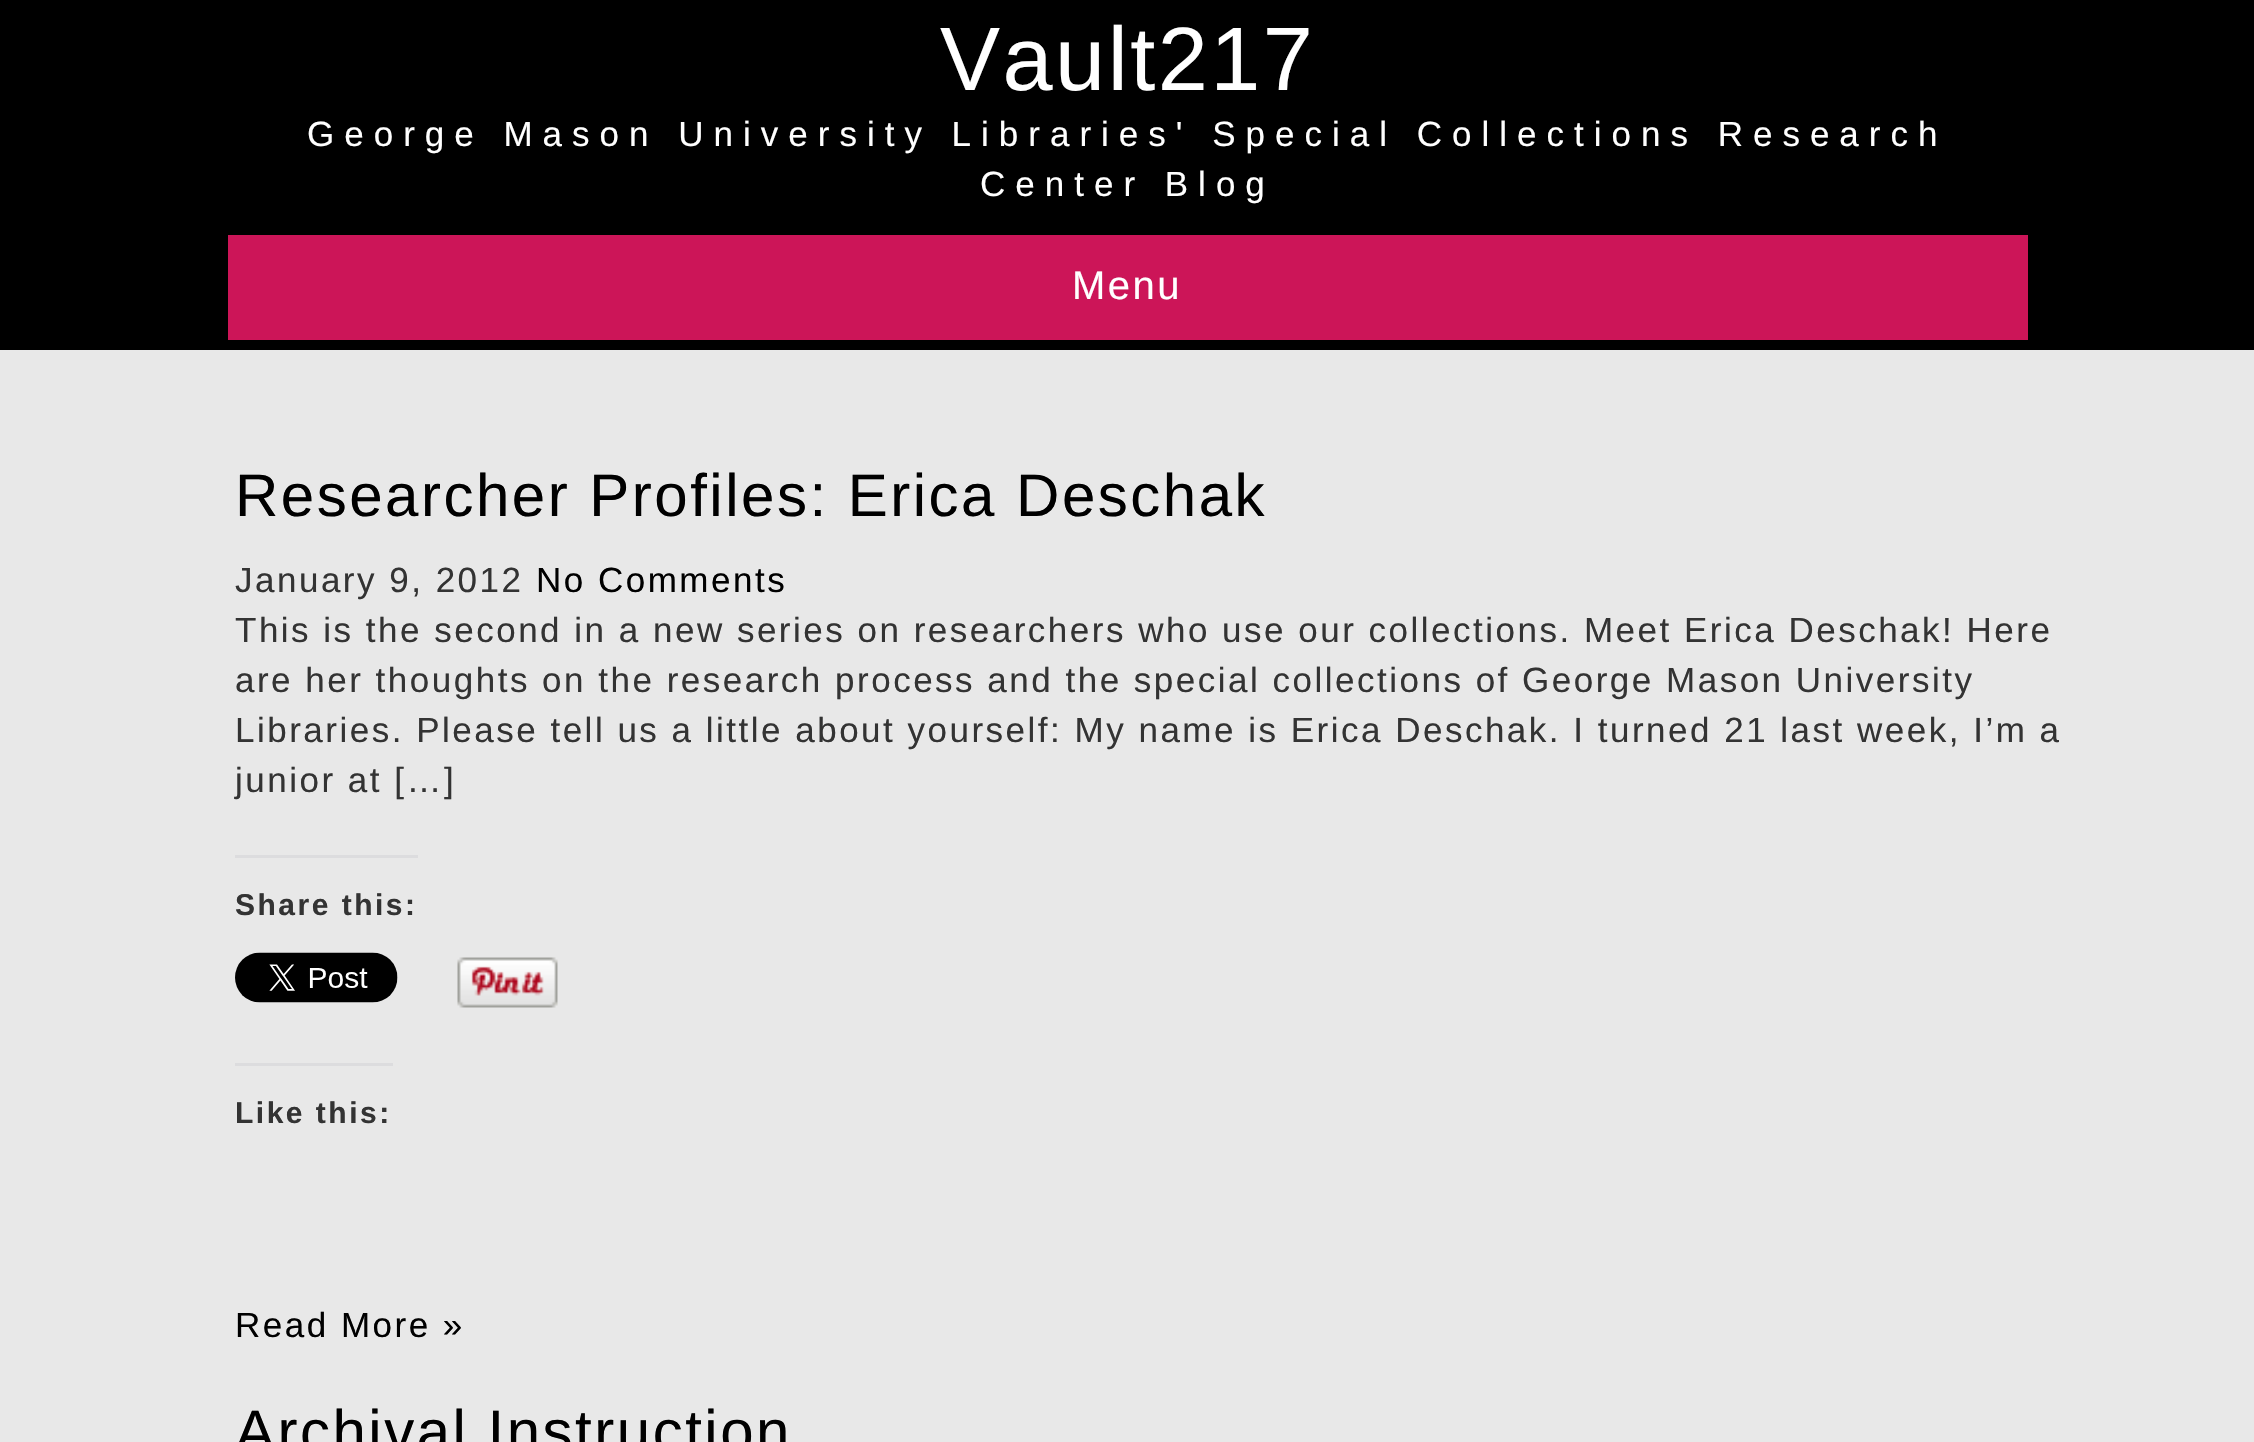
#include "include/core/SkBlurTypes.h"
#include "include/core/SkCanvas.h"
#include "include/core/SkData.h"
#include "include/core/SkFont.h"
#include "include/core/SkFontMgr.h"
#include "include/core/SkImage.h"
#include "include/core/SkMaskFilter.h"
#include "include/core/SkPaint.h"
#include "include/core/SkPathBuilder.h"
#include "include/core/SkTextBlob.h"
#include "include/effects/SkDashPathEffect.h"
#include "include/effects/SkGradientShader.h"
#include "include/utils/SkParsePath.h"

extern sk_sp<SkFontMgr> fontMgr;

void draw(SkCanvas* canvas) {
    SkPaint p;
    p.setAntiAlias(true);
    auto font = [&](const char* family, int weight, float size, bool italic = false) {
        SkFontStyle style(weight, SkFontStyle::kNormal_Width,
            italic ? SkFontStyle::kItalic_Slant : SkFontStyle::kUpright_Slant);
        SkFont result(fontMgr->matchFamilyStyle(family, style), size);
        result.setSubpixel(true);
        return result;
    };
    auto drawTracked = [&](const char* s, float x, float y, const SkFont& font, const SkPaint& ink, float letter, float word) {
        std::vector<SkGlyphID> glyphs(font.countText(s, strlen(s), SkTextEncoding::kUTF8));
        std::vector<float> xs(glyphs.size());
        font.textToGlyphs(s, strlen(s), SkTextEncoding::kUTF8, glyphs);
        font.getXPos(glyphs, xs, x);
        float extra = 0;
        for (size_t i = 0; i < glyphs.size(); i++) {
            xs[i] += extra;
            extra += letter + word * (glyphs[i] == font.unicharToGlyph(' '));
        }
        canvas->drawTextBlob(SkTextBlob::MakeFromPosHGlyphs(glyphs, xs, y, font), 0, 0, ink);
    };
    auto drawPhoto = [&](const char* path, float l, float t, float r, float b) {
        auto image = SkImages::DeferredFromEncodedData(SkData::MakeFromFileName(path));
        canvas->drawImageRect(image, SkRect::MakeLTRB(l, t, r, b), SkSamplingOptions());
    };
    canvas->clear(0xFFE8E8E8);
    p.setColor(0xFF000000);
    canvas->drawRect(SkRect::MakeLTRB(0, 0, 2254, 350), p);
    auto font1 = font("Liberation Sans", 400, 90);
    p.setColor(0xFFFFFFFF);
    drawTracked("Vault217", 940, 90, font1, p, 2.5f, 0);
    auto font2 = font("Liberation Sans", 400, 35);
    drawTracked("George Mason University Libraries' Special Collections Research", 307, 146, font2, p, 10, 0);
    drawTracked("Center Blog", 980, 196, font2, p, 10, 0);
    p.setColor(0xFFCC1558);
    canvas->drawRect(SkRect::MakeLTRB(228, 235, 2028, 340), p);
    auto font3 = font("Liberation Sans", 400, 40);
    p.setColor(0xFFFFFFFF);
    drawTracked("Menu", 1072, 299, font3, p, 2.5f, 0);
    auto font4 = font("Liberation Sans", 400, 60);
    p.setColor(0xFF000000);
    drawTracked("Researcher Profiles: Erica Deschak", 235, 516, font4, p, 2.5f, 0);
    p.setColor(0xFF333333);
    drawTracked("January 9, 2012", 235, 592, font2, p, 2.5f, 0);
    p.setColor(0xFF000000);
    drawTracked("No Comments", 536, 592, font2, p, 2.5f, 0);
    p.setColor(0xFF333333);
    {
        const struct { const char* s; float x, y; } items[] = {
            {"This is the second in a new series on researchers who use our collections. Meet Erica Deschak! Here", 235, 642},
            {"are her thoughts on the research process and the special collections of George Mason University", 235, 692},
            {"Libraries. Please tell us a little about yourself: My name is Erica Deschak. I turned 21 last week, I’m a", 235, 742},
            {"junior at […]", 235, 792},
        };
        for (auto [s, x, y] : items) {
            drawTracked(s, x, y, font2, p, 2.5f, 0);
        }
    }
    p.setColor(0xFFDCDCDE);
    canvas->drawRect(SkRect::MakeLTRB(235, 855, 418, 858), p);
    auto font5 = font("Liberation Sans", 700, 30);
    p.setColor(0xFF333333);
    drawTracked("Share this:", 235, 915, font5, p, 2.5f, 0);
    drawPhoto("media/1.png", 235, 952, 398, 1003);
    drawPhoto("media/2.png", 457, 957, 558, 1008);
    p.setColor(0xFFDCDCDE);
    canvas->drawRect(SkRect::MakeLTRB(235, 1063, 393, 1066), p);
    p.setColor(0xFF333333);
    drawTracked("Like this:", 235, 1123, font5, p, 2.5f, 0);
    p.setColor(0xFF000000);
    drawTracked("Read More »", 235, 1337, font2, p, 2.5f, 0);
    drawTracked("Archival Instruction", 235, 1452, font4, p, 2.5f, 0);
}
